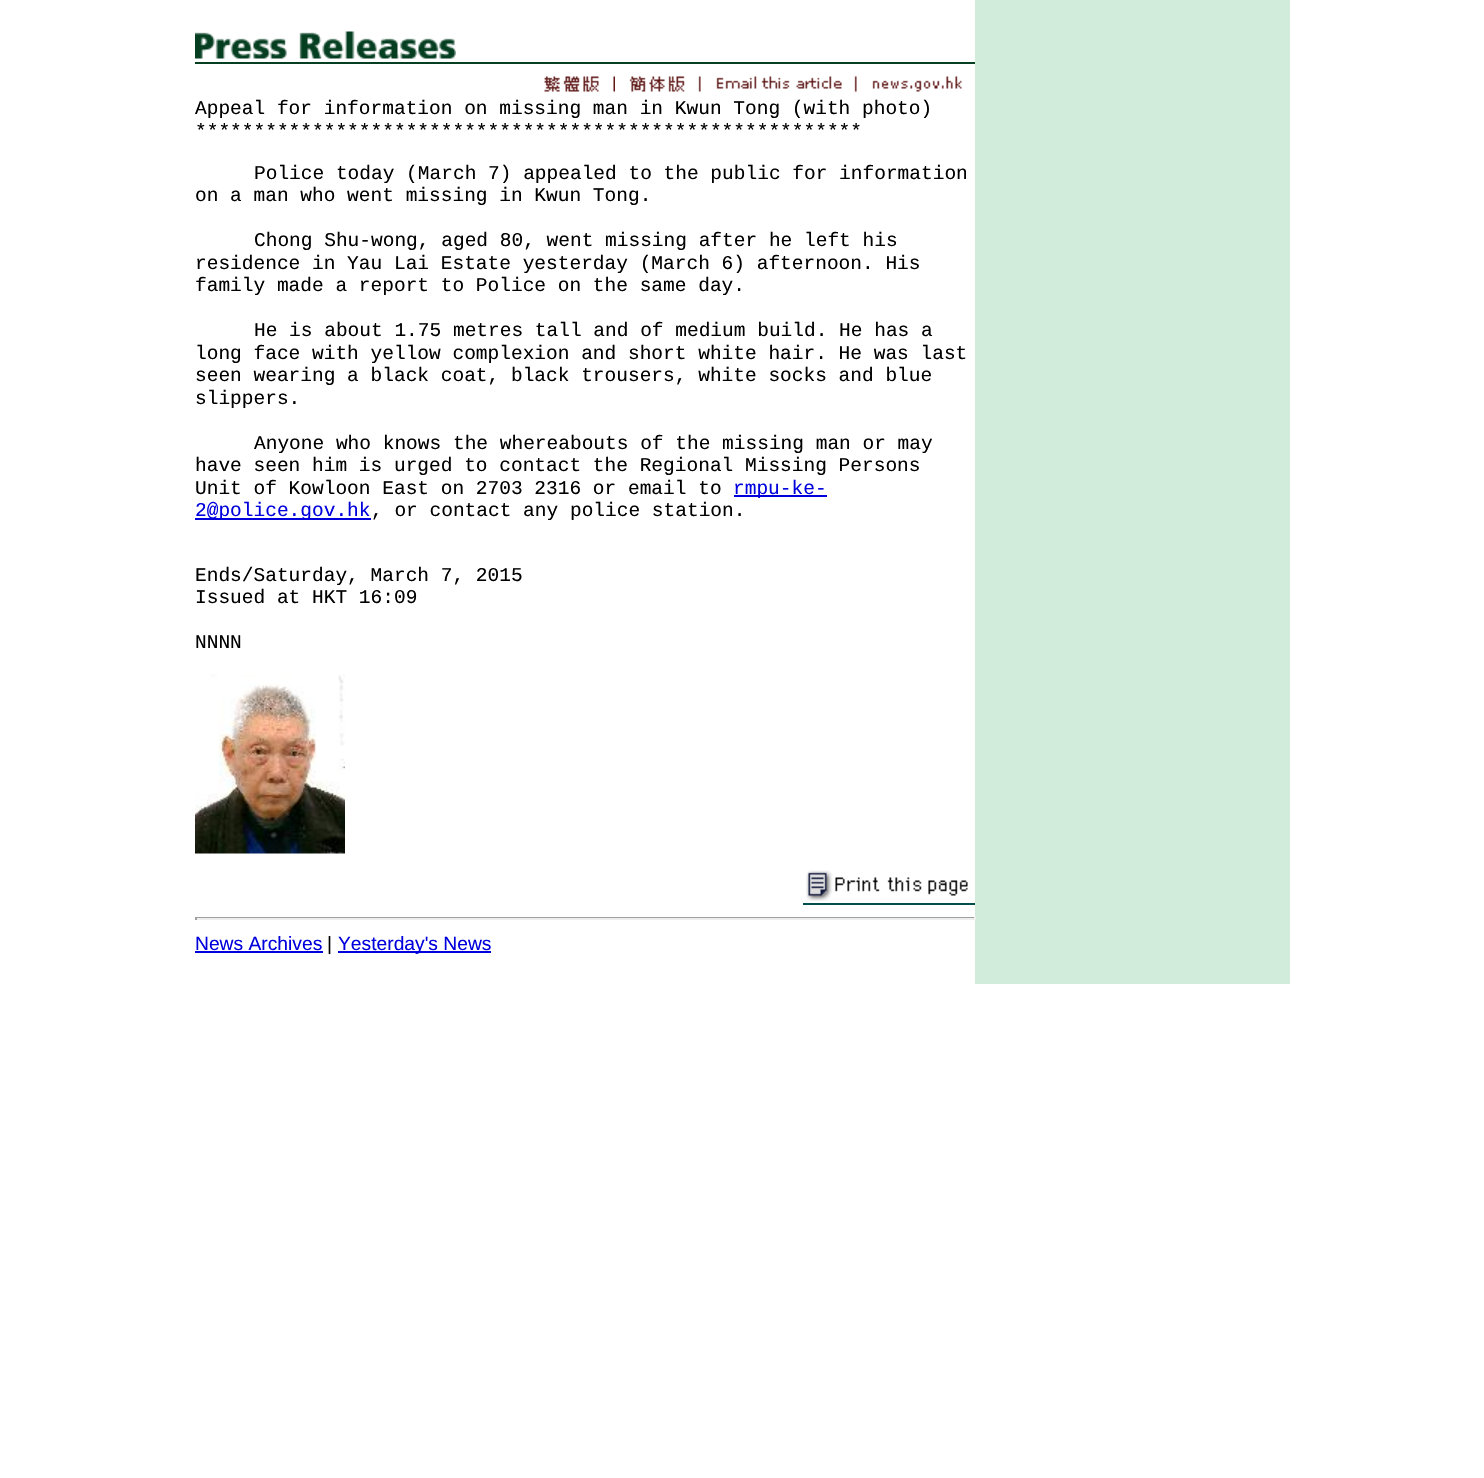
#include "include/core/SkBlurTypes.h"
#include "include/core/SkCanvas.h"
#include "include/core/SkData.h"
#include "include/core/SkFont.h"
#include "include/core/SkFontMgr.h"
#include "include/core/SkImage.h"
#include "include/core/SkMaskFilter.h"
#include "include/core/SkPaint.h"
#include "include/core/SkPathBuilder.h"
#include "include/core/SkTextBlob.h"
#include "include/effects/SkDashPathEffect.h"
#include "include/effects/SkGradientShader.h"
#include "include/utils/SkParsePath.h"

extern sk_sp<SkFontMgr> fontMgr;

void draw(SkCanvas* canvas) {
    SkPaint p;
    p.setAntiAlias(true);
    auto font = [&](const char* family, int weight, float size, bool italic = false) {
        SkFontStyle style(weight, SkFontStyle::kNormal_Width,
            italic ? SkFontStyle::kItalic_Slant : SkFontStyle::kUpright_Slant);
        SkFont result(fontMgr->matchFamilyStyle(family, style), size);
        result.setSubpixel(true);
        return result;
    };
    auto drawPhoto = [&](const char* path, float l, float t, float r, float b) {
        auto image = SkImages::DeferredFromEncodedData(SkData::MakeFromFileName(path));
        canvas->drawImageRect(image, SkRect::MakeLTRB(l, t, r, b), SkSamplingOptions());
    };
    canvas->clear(0xFFFFFFFF);
    p.setColor(0xFFD1ECDA);
    canvas->drawRect(SkRect::MakeLTRB(975, 0, 1290, 984), p);
    p.setColor(0xFF053E21);
    canvas->drawRect(SkRect::MakeLTRB(195, 62, 975, 64), p);
    drawPhoto("media/1.png", 195, 31, 456, 59);
    drawPhoto("media/2.png", 544, 76, 615, 92);
    drawPhoto("media/3.png", 629, 76, 701, 92);
    drawPhoto("media/4.png", 716, 76, 857, 92);
    drawPhoto("media/5.png", 872, 76, 962, 92);
    auto font1 = font("Liberation Mono", 400, 19.5f);
    p.setColor(0xFF000000);
    {
        const struct { const char* s; float x, y; } items[] = {
            {"Appeal for information on missing man in Kwun Tong (with photo)", 195, 114},
            {"*********************************************************", 195, 137},
            {"Police today (March 7) appealed to the public for information", 254, 179},
            {"on a man who went missing in Kwun Tong.", 195, 201},
            {"Chong Shu-wong, aged 80, went missing after he left his", 254, 246},
            {"residence in Yau Lai Estate yesterday (March 6) afternoon. His", 195, 269},
            {"family made a report to Police on the same day.", 195, 291},
            {"He is about 1.75 metres tall and of medium build. He has a", 254, 336},
            {"long face with yellow complexion and short white hair. He was last", 195, 359},
            {"seen wearing a black coat, black trousers, white socks and blue", 195, 381},
            {"slippers.", 195, 404},
            {"Anyone who knows the whereabouts of the missing man or may", 254, 449},
            {"have seen him is urged to contact the Regional Missing Persons", 195, 471},
            {"Unit of Kowloon East on 2703 2316 or email to", 195, 494},
        };
        for (auto [s, x, y] : items) {
            canvas->drawString(s, x, y, font1, p);
        }
    }
    p.setColor(0xFF0000DD);
    canvas->drawRect(SkRect::MakeLTRB(734, 495, 827, 497), p);
    canvas->drawString("rmpu-ke-", 733, 494, font1, p);
    canvas->drawRect(SkRect::MakeLTRB(195, 518, 371, 520), p);
    canvas->drawString("2@police.gov.hk", 195, 516, font1, p);
    p.setColor(0xFF000000);
    {
        const struct { const char* s; float x, y; } items[] = {
            {", or contact any police station.", 371, 516},
            {"Ends/Saturday, March 7, 2015", 195, 581},
            {"Issued at HKT 16:09", 195, 603},
            {"NNNN", 195, 648},
        };
        for (auto [s, x, y] : items) {
            canvas->drawString(s, x, y, font1, p);
        }
    }
    drawPhoto("media/6.png", 195, 674, 345, 854);
    drawPhoto("media/7.png", 806, 870, 968, 901);
    {
        const struct { float l, t, r, b; SkColor color; } items[] = {
            {803, 903, 975, 905, 0xFF004F4E},
            {195, 917, 975, 918, 0xFF9F9F9F},
            {974, 917, 976, 920, 0xFFEEEEEE},
            {195, 918, 975, 920, 0xFFEEEEEE},
            {195, 917, 197, 920, 0xFF9F9F9F},
        };
        for (auto [l, t, r, b, color] : items) {
            p.setColor(color);
            canvas->drawRect(SkRect::MakeLTRB(l, t, r, b), p);
        }
    }
    auto font2 = font("Liberation Sans", 400, 19.25f);
    p.setColor(0xFF0000DD);
    canvas->drawString("News Archives", 195, 950, font2, p);
    canvas->drawRect(SkRect::MakeLTRB(195, 951, 323, 953), p);
    p.setColor(0xFF000000);
    canvas->drawString("|", 327, 950, font2, p);
    p.setColor(0xFF0000DD);
    canvas->drawRect(SkRect::MakeLTRB(338, 951, 491, 953), p);
    canvas->drawString("Yesterday's News", 338, 950, font2, p);
}
